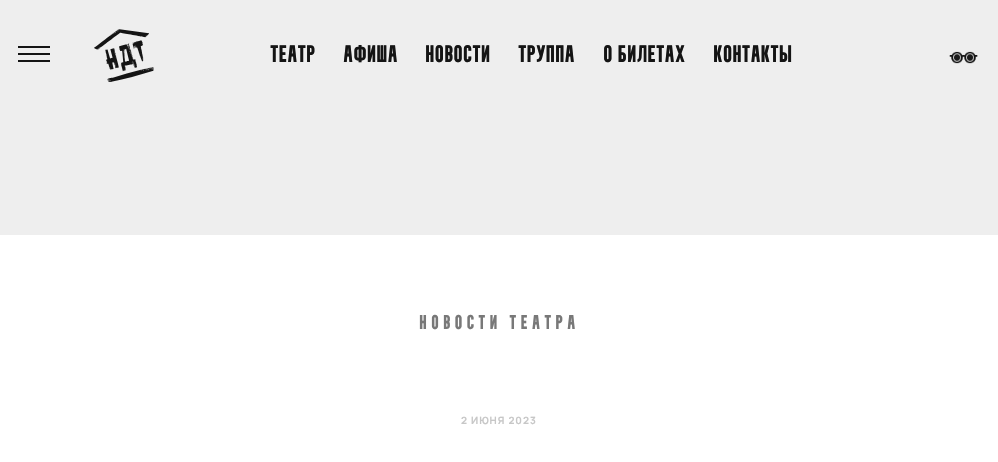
#include "include/core/SkBlurTypes.h"
#include "include/core/SkCanvas.h"
#include "include/core/SkData.h"
#include "include/core/SkFont.h"
#include "include/core/SkFontMgr.h"
#include "include/core/SkImage.h"
#include "include/core/SkMaskFilter.h"
#include "include/core/SkPaint.h"
#include "include/core/SkPathBuilder.h"
#include "include/core/SkTextBlob.h"
#include "include/effects/SkDashPathEffect.h"
#include "include/effects/SkGradientShader.h"
#include "include/utils/SkParsePath.h"

extern sk_sp<SkFontMgr> fontMgr;

void draw(SkCanvas* canvas) {
    SkPaint p;
    p.setAntiAlias(true);
    auto font = [&](const char* family, int weight, float size, bool italic = false) {
        SkFontStyle style(weight, SkFontStyle::kNormal_Width,
            italic ? SkFontStyle::kItalic_Slant : SkFontStyle::kUpright_Slant);
        SkFont result(fontMgr->matchFamilyStyle(family, style), size);
        result.setSubpixel(true);
        return result;
    };
    auto drawTracked = [&](const char* s, float x, float y, const SkFont& font, const SkPaint& ink, float letter, float word) {
        std::vector<SkGlyphID> glyphs(font.countText(s, strlen(s), SkTextEncoding::kUTF8));
        std::vector<float> xs(glyphs.size());
        font.textToGlyphs(s, strlen(s), SkTextEncoding::kUTF8, glyphs);
        font.getXPos(glyphs, xs, x);
        float extra = 0;
        for (size_t i = 0; i < glyphs.size(); i++) {
            xs[i] += extra;
            extra += letter + word * (glyphs[i] == font.unicharToGlyph(' '));
        }
        canvas->drawTextBlob(SkTextBlob::MakeFromPosHGlyphs(glyphs, xs, y, font), 0, 0, ink);
    };
    auto drawPhoto = [&](const char* path, float l, float t, float r, float b) {
        auto image = SkImages::DeferredFromEncodedData(SkData::MakeFromFileName(path));
        canvas->drawImageRect(image, SkRect::MakeLTRB(l, t, r, b), SkSamplingOptions());
    };
    canvas->clear(0xFFEEEEEE);
    {
        const struct { float l, t, r, b; SkColor color; } items[] = {
            {18, 46, 50, 48, 0xFF141414},
            {18, 53, 50, 55, 0xFF141414},
            {18, 60, 50, 62, 0xFF141414},
        };
        for (auto [l, t, r, b, color] : items) {
            p.setColor(color);
            canvas->drawRect(SkRect::MakeLTRB(l, t, r, b), p);
        }
    }
    drawPhoto("media/1.png", 94, 29, 154, 82);
    auto font1 = font("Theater", 700, 24);
    {
        const struct { const char* s; float x, y; } items[] = {
            {"ТЕАТР", 270, 62},
            {"АФИША", 343, 62},
            {"НОВОСТИ", 425, 62},
            {"ТРУППА", 518, 62},
            {"О БИЛЕТАХ", 603, 62},
            {"КОНТАКТЫ", 713, 62},
        };
        for (auto [s, x, y] : items) {
            canvas->drawString(s, x, y, font1, p);
        }
    }
    drawPhoto("media/2.png", 949, 51, 978, 64);
    p.setColor(0xFFFFFFFF);
    canvas->drawRect(SkRect::MakeLTRB(0, 235, 998, 462), p);
    auto font2 = font("Theater", 700, 20);
    p.setColor(0xFF787878);
    drawTracked("новости театра", 419, 329, font2, p, 4, 0);
    auto font3 = font("Manrope", 700, 10);
    p.setColor(0xFFC7C7C7);
    drawTracked("2 ИЮНЯ 2023", 461, 424, font3, p, 1, 0);
}
